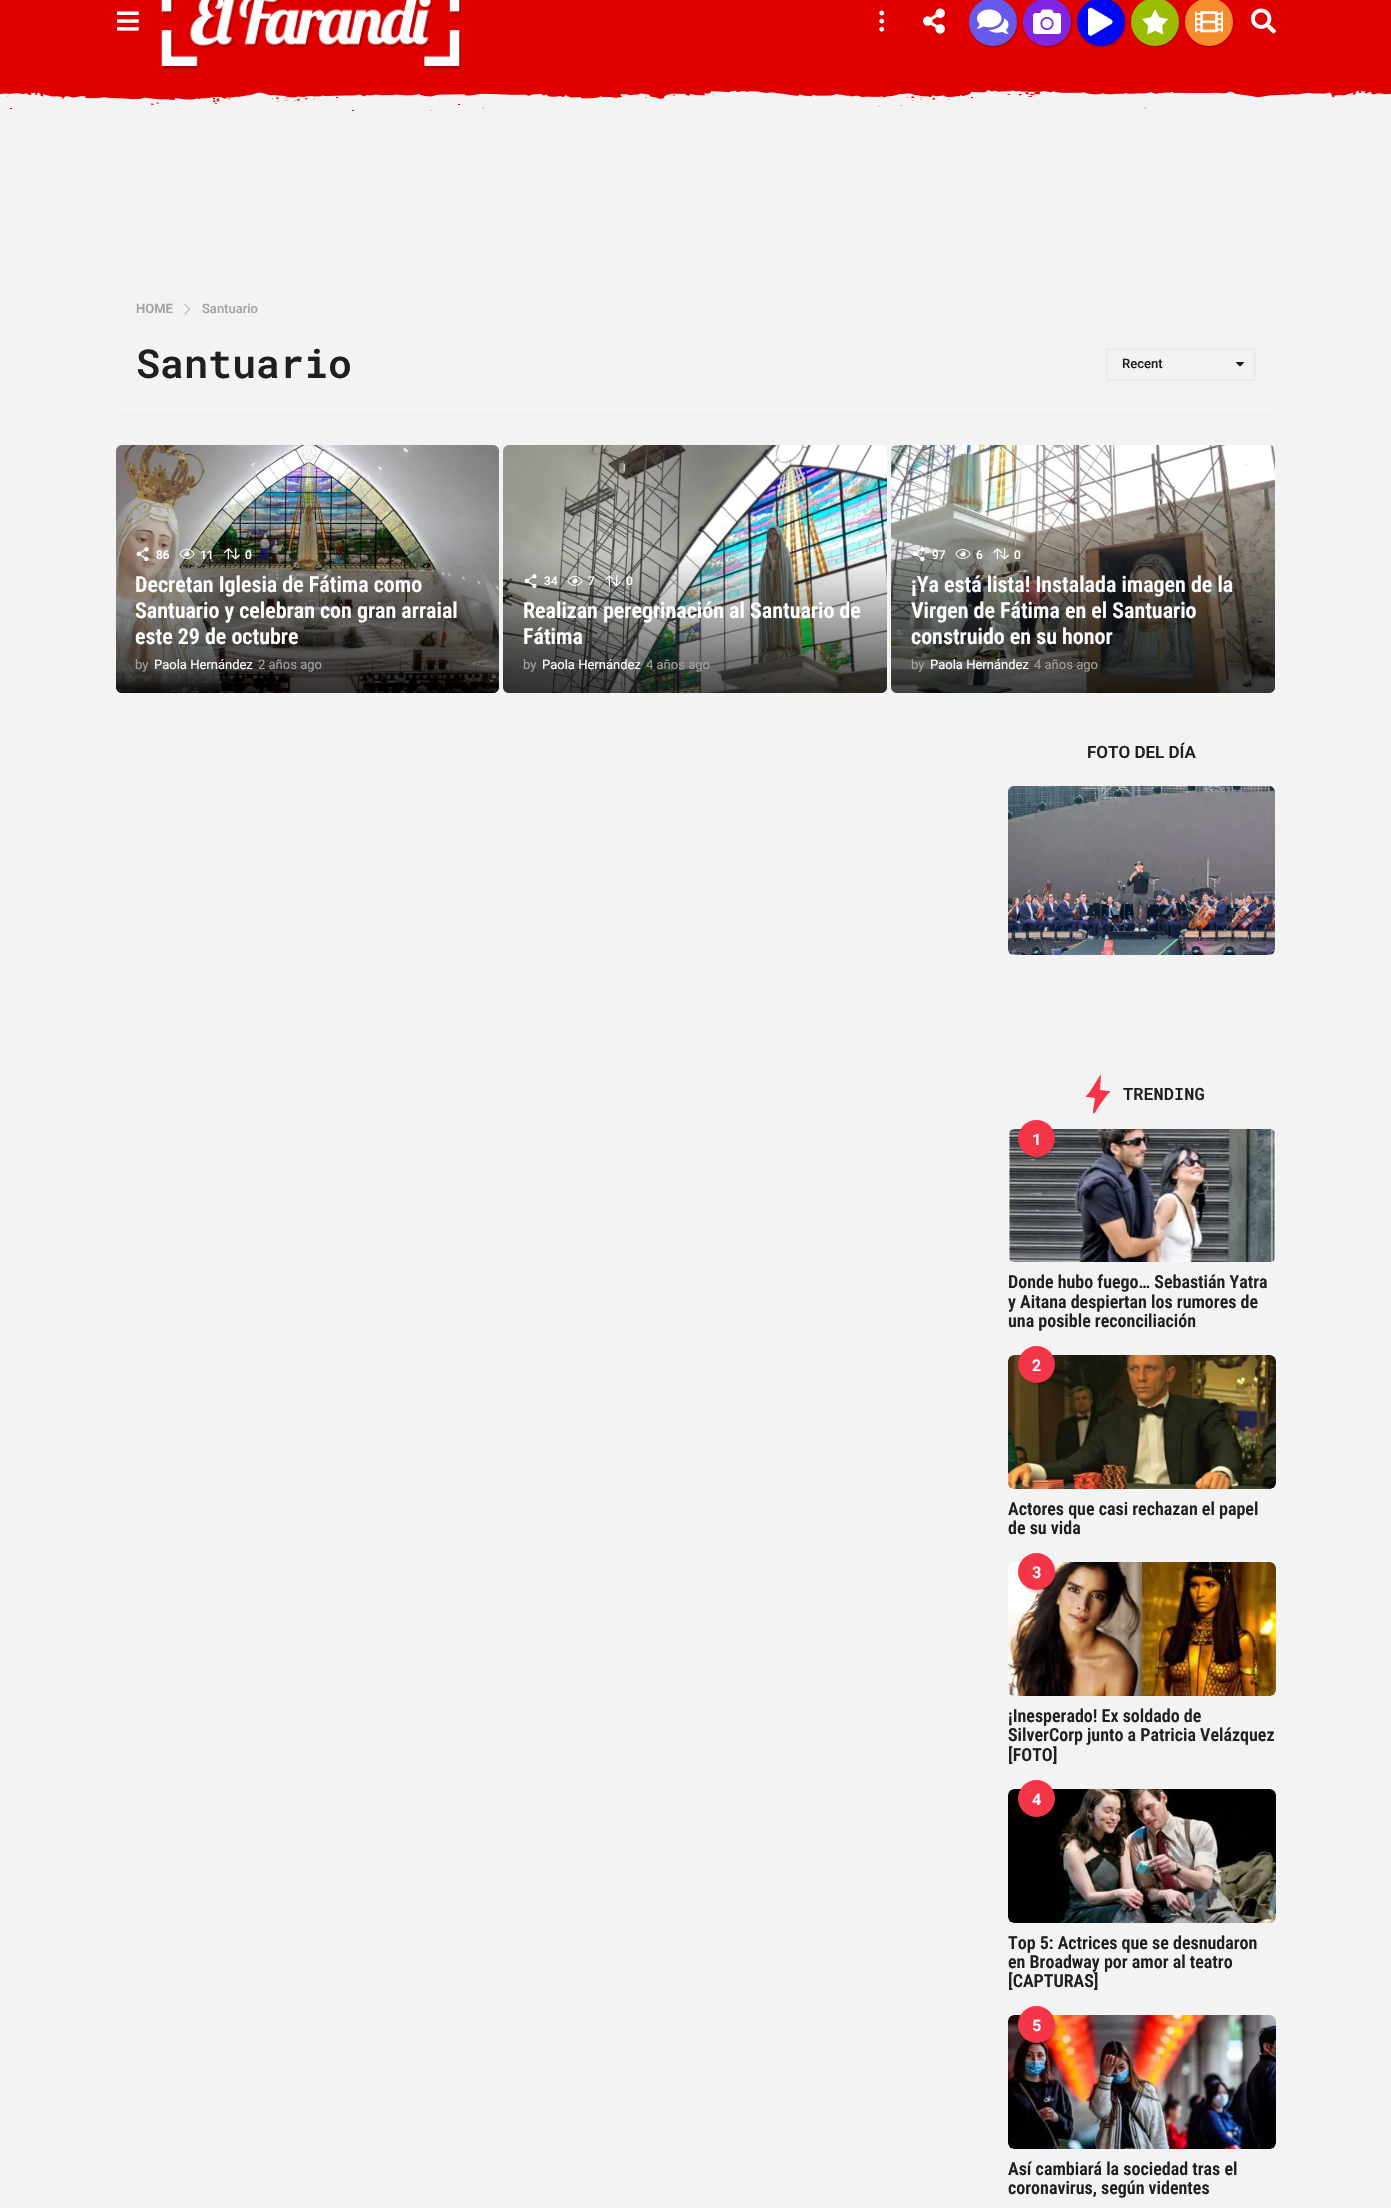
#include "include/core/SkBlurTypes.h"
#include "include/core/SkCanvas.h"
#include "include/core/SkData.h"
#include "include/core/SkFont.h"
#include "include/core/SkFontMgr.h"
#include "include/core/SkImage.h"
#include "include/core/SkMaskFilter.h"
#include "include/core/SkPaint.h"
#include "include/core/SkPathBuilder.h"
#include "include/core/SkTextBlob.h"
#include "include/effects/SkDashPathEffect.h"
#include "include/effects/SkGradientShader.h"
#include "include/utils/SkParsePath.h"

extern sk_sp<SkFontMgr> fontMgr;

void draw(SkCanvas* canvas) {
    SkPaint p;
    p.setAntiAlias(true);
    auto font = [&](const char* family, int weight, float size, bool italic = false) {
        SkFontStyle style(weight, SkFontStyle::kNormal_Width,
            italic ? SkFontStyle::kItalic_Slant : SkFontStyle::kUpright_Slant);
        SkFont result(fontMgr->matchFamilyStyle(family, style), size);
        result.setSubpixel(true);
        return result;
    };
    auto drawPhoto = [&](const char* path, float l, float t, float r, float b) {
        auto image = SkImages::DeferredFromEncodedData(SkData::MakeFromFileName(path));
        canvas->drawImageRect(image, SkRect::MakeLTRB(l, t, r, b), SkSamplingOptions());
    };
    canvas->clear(0xFFF3F3F3);
    p.setColor(0xFFE10000);
    canvas->drawRect(SkRect::MakeLTRB(0, 0, 1391, 84), p);
    drawPhoto("media/1.png", 117, 11, 139, 31);
    drawPhoto("media/2.png", 161, 0, 461, 69);
    drawPhoto("media/3.png", 879, 10, 885, 32);
    drawPhoto("media/4.png", 923, 8, 945, 34);
    p.setColor(0x2E000000);
    p.setMaskFilter(SkMaskFilter::MakeBlur(kNormal_SkBlurStyle, 1));
    canvas->drawRoundRect(SkRect::MakeLTRB(970, 0, 1018, 48), 24, 24, p);
    p.setMaskFilter(nullptr);
    p.setColor(0xFF6759EB);
    canvas->drawCircle(993, 22, 24, p);
    drawPhoto("media/5.png", 977, 9, 1009, 34);
    p.setColor(0x2E000000);
    p.setMaskFilter(SkMaskFilter::MakeBlur(kNormal_SkBlurStyle, 1));
    canvas->drawRoundRect(SkRect::MakeLTRB(1024, 0, 1072, 48), 24, 24, p);
    p.setMaskFilter(nullptr);
    p.setColor(0xFF8224E3);
    canvas->drawCircle(1047, 22, 24, p);
    drawPhoto("media/6.png", 1033, 9, 1061, 34);
    p.setColor(0x2E000000);
    p.setMaskFilter(SkMaskFilter::MakeBlur(kNormal_SkBlurStyle, 1));
    canvas->drawRoundRect(SkRect::MakeLTRB(1078, 0, 1126, 48), 24, 24, p);
    p.setMaskFilter(nullptr);
    p.setColor(0xFF0008F2);
    canvas->drawCircle(1101, 22, 24, p);
    drawPhoto("media/7.png", 1088, 7, 1113, 36);
    p.setColor(0x2E000000);
    p.setMaskFilter(SkMaskFilter::MakeBlur(kNormal_SkBlurStyle, 1));
    canvas->drawRoundRect(SkRect::MakeLTRB(1132, 0, 1180, 48), 24, 24, p);
    p.setMaskFilter(nullptr);
    p.setColor(0xFF9ABC01);
    canvas->drawCircle(1155, 22, 24, p);
    drawPhoto("media/8.png", 1142, 9, 1168, 35);
    p.setColor(0x2E000000);
    p.setMaskFilter(SkMaskFilter::MakeBlur(kNormal_SkBlurStyle, 1));
    canvas->drawRoundRect(SkRect::MakeLTRB(1186, 0, 1234, 48), 24, 24, p);
    p.setMaskFilter(nullptr);
    p.setColor(0xFFF78C2E);
    canvas->drawCircle(1209, 22, 24, p);
    drawPhoto("media/9.png", 1195, 11, 1223, 33);
    drawPhoto("media/10.png", 1251, 8, 1276, 34);
    drawPhoto("media/11.png", 0, 84, 1391, 111);
    p.setColor(0xFFECECEC);
    canvas->drawRect(SkRect::MakeLTRB(116, 414, 1276, 415), p);
    auto font1 = font("Roboto", 600, 13);
    p.setColor(0xFFA3A3A3);
    canvas->drawString("HOME", 136, 313, font1, p);
    drawPhoto("media/12.png", 184, 303, 191, 315);
    auto font2 = font("Roboto", 500, 13);
    canvas->drawString("Santuario", 202, 313, font2, p);
    auto font3 = font("Roboto Mono", 600, 40);
    p.setColor(0xFF1F1F1F);
    canvas->drawString("Santuario", 136, 378, font3, p);
    p.setStyle(SkPaint::kStroke_Style);
    p.setStrokeWidth(2);
    p.setColor(0xFFECECEC);
    canvas->drawRoundRect(SkRect::MakeLTRB(1107, 349, 1255, 380), 2, 2, p);
    p.setStyle(SkPaint::kFill_Style);
    p.setColor(0xFF1F1F1F);
    canvas->drawString("Recent", 1122, 368, font2, p);
    drawPhoto("media/13.png", 1236, 362, 1244, 367);
    drawPhoto("media/14.png", 116, 445, 499, 693);
    {
        const SkColor colors[] = {0x00000000, 0xB3000000};
        const float stops[] = {0, 1};
        const SkPoint ends[] = {{308, 525}, {308, 693}};
        p.setShader(SkGradientShader::MakeLinear(ends, colors, stops, 2, SkTileMode::kClamp));
        p.setAlpha(255);
    }
    canvas->drawPath(SkPathBuilder().moveTo(116, 525).lineTo(499, 525).lineTo(499, 687).cubicTo(499, 690.5f, 496.5f, 693, 493, 693).lineTo(122, 693).cubicTo(118.5f, 693, 116, 690.5f, 116, 687).close().detach(), p);
    drawPhoto("media/15.png", 136, 547, 149, 562);
    auto font4 = font("Roboto", 500, 12);
    p.setShader(nullptr);
    p.setColor(0xFFFFFFFF);
    canvas->drawString("86", 156, 559, font4, p);
    drawPhoto("media/16.png", 179, 549, 195, 559);
    canvas->drawString("11", 200, 559, font4, p);
    drawPhoto("media/17.png", 224, 548, 240, 560);
    canvas->drawString("0", 245, 559, font4, p);
    auto font5 = font("Roboto Condensed", 600, 22);
    {
        const struct { const char* s; float x, y; } items[] = {
            {"Decretan Iglesia de Fátima como", 135, 592},
            {"Santuario y celebran con gran arraial", 135, 618},
            {"este 29 de octubre", 135, 644},
        };
        for (auto [s, x, y] : items) {
            canvas->drawString(s, x, y, font5, p);
        }
    }
    auto font6 = font("Roboto", 400, 13);
    p.setColor(0xFFA3A3A3);
    canvas->drawString("by", 135, 669, font6, p);
    p.setColor(0xFFFFFFFF);
    canvas->drawString("Paola Hernández", 154, 669, font6, p);
    p.setColor(0xFFA3A3A3);
    canvas->drawString("2 años ago", 258, 669, font6, p);
    drawPhoto("media/18.png", 503, 445, 887, 693);
    {
        const SkColor colors[] = {0x00000000, 0xB3000000};
        const float stops[] = {0, 1};
        const SkPoint ends[] = {{695, 552}, {695, 693}};
        p.setShader(SkGradientShader::MakeLinear(ends, colors, stops, 2, SkTileMode::kClamp));
        p.setAlpha(255);
    }
    canvas->drawPath(SkPathBuilder().moveTo(503, 552).lineTo(887, 552).lineTo(887, 687).cubicTo(887, 690.5f, 884.5f, 693, 881, 693).lineTo(509, 693).cubicTo(505.5f, 693, 503, 690.5f, 503, 687).close().detach(), p);
    drawPhoto("media/19.png", 524, 574, 537, 589);
    p.setShader(nullptr);
    p.setColor(0xFFFFFFFF);
    canvas->drawString("34", 544, 585, font4, p);
    drawPhoto("media/20.png", 567, 576, 583, 586);
    canvas->drawString("7", 588, 585, font4, p);
    drawPhoto("media/21.png", 605, 575, 621, 587);
    canvas->drawString("0", 626, 585, font4, p);
    canvas->drawString("Realizan peregrinación al Santuario de", 523, 618, font5, p);
    canvas->drawString("Fátima", 523, 644, font5, p);
    p.setColor(0xFFA3A3A3);
    canvas->drawString("by", 523, 669, font6, p);
    p.setColor(0xFFFFFFFF);
    canvas->drawString("Paola Hernández", 542, 669, font6, p);
    p.setColor(0xFFA3A3A3);
    canvas->drawString("4 años ago", 646, 669, font6, p);
    drawPhoto("media/22.png", 891, 445, 1275, 693);
    {
        const SkColor colors[] = {0x00000000, 0xB3000000};
        const float stops[] = {0, 1};
        const SkPoint ends[] = {{1083, 525}, {1083, 693}};
        p.setShader(SkGradientShader::MakeLinear(ends, colors, stops, 2, SkTileMode::kClamp));
        p.setAlpha(255);
    }
    canvas->drawPath(SkPathBuilder().moveTo(891, 525).lineTo(1275, 525).lineTo(1275, 687).cubicTo(1275, 690.5f, 1272.5f, 693, 1269, 693).lineTo(897, 693).cubicTo(893.5f, 693, 891, 690.5f, 891, 687).close().detach(), p);
    drawPhoto("media/23.png", 912, 547, 925, 562);
    p.setShader(nullptr);
    p.setColor(0xFFFFFFFF);
    canvas->drawString("97", 932, 559, font4, p);
    drawPhoto("media/24.png", 955, 549, 971, 559);
    canvas->drawString("6", 976, 559, font4, p);
    drawPhoto("media/25.png", 993, 548, 1009, 560);
    canvas->drawString("0", 1014, 559, font4, p);
    {
        const struct { const char* s; float x, y; } items[] = {
            {"¡Ya está lista! Instalada imagen de la", 911, 592},
            {"Virgen de Fátima en el Santuario", 911, 618},
            {"construido en su honor", 911, 644},
        };
        for (auto [s, x, y] : items) {
            canvas->drawString(s, x, y, font5, p);
        }
    }
    p.setColor(0xFFA3A3A3);
    canvas->drawString("by", 911, 669, font6, p);
    p.setColor(0xFFFFFFFF);
    canvas->drawString("Paola Hernández", 930, 669, font6, p);
    p.setColor(0xFFA3A3A3);
    canvas->drawString("4 años ago", 1034, 669, font6, p);
    auto font7 = font("Roboto", 600, 17);
    p.setColor(0xFF1F1F1F);
    canvas->drawString("FOTO DEL DÍA", 1087, 758, font7, p);
    drawPhoto("media/26.png", 1008, 786, 1275, 955);
    p.setColor(0xFFF43547);
    canvas->drawPath(SkPathBuilder().moveTo(1101, 1074).lineTo(1089, 1093).cubicTo(1086, 1096, 1084, 1097, 1088, 1097).lineTo(1095, 1098).lineTo(1093, 1111).cubicTo(1093, 1118, 1097, 1109, 1099, 1106).lineTo(1107, 1095).cubicTo(1110, 1092, 1112, 1091, 1108, 1091).lineTo(1100, 1090).close().detach(), p);
    auto font8 = font("Roboto Mono", 600, 17);
    p.setColor(0xFF1F1F1F);
    canvas->drawString("TRENDING", 1123, 1100, font8, p);
    p.setColor(0xFFF7F7F7);
    canvas->drawRoundRect(SkRect::MakeLTRB(1008, 1129, 1276, 1262), 6, 6, p);
    drawPhoto("media/27.png", 1008, 1129, 1276, 1262);
    p.setColor(0x2E000000);
    p.setMaskFilter(SkMaskFilter::MakeBlur(kNormal_SkBlurStyle, 1));
    canvas->drawRoundRect(SkRect::MakeLTRB(1019, 1122, 1056, 1159), 18.5f, 18.5f, p);
    p.setMaskFilter(nullptr);
    p.setColor(0xFFF43547);
    canvas->drawCircle(1036.5f, 1138.5f, 18.5f, p);
    auto font9 = font("Roboto Mono", 600, 16);
    p.setColor(0xFFFFFFFF);
    canvas->drawString("1", 1032, 1145, font9, p);
    auto font10 = font("Roboto Condensed", 600, 18);
    p.setColor(0xFF1F1F1F);
    {
        const struct { const char* s; float x, y; } items[] = {
            {"Donde hubo fuego… Sebastián Yatra", 1008, 1288},
            {"y Aitana despiertan los rumores de", 1008, 1308},
            {"una posible reconciliación", 1008, 1327},
        };
        for (auto [s, x, y] : items) {
            canvas->drawString(s, x, y, font10, p);
        }
    }
    p.setColor(0xFFF7F7F7);
    canvas->drawRoundRect(SkRect::MakeLTRB(1008, 1355, 1276, 1489), 6, 6, p);
    drawPhoto("media/28.png", 1008, 1355, 1276, 1489);
    p.setColor(0x2E000000);
    p.setMaskFilter(SkMaskFilter::MakeBlur(kNormal_SkBlurStyle, 1));
    canvas->drawRoundRect(SkRect::MakeLTRB(1019, 1348, 1056, 1385), 18.5f, 18.5f, p);
    p.setMaskFilter(nullptr);
    p.setColor(0xFFF43547);
    canvas->drawCircle(1036.5f, 1364.5f, 18.5f, p);
    p.setColor(0xFFFFFFFF);
    canvas->drawString("2", 1032, 1371, font9, p);
    p.setColor(0xFF1F1F1F);
    canvas->drawString("Actores que casi rechazan el papel", 1008, 1515, font10, p);
    canvas->drawString("de su vida", 1008, 1534, font10, p);
    p.setColor(0xFFF7F7F7);
    canvas->drawRoundRect(SkRect::MakeLTRB(1008, 1562, 1276, 1696), 6, 6, p);
    drawPhoto("media/29.png", 1008, 1562, 1276, 1696);
    p.setColor(0x2E000000);
    p.setMaskFilter(SkMaskFilter::MakeBlur(kNormal_SkBlurStyle, 1));
    canvas->drawRoundRect(SkRect::MakeLTRB(1019, 1555, 1056, 1592), 18.5f, 18.5f, p);
    p.setMaskFilter(nullptr);
    p.setColor(0xFFF43547);
    canvas->drawCircle(1036.5f, 1571.5f, 18.5f, p);
    p.setColor(0xFFFFFFFF);
    canvas->drawString("3", 1032, 1578, font9, p);
    p.setColor(0xFF1F1F1F);
    {
        const struct { const char* s; float x, y; } items[] = {
            {"¡Inesperado! Ex soldado de", 1008, 1722},
            {"SilverCorp junto a Patricia Velázquez", 1008, 1741},
            {"[FOTO]", 1008, 1761},
        };
        for (auto [s, x, y] : items) {
            canvas->drawString(s, x, y, font10, p);
        }
    }
    p.setColor(0xFFF7F7F7);
    canvas->drawRoundRect(SkRect::MakeLTRB(1008, 1789, 1276, 1923), 6, 6, p);
    drawPhoto("media/30.png", 1008, 1789, 1276, 1923);
    p.setColor(0x2E000000);
    p.setMaskFilter(SkMaskFilter::MakeBlur(kNormal_SkBlurStyle, 1));
    canvas->drawRoundRect(SkRect::MakeLTRB(1019, 1782, 1056, 1819), 18.5f, 18.5f, p);
    p.setMaskFilter(nullptr);
    p.setColor(0xFFF43547);
    canvas->drawCircle(1036.5f, 1798.5f, 18.5f, p);
    p.setColor(0xFFFFFFFF);
    canvas->drawString("4", 1032, 1805, font9, p);
    p.setColor(0xFF1F1F1F);
    {
        const struct { const char* s; float x, y; } items[] = {
            {"Top 5: Actrices que se desnudaron", 1008, 1949},
            {"en Broadway por amor al teatro", 1008, 1968},
            {"[CAPTURAS]", 1008, 1987},
        };
        for (auto [s, x, y] : items) {
            canvas->drawString(s, x, y, font10, p);
        }
    }
    p.setColor(0xFFF7F7F7);
    canvas->drawRoundRect(SkRect::MakeLTRB(1008, 2015, 1276, 2149), 6, 6, p);
    drawPhoto("media/31.png", 1008, 2015, 1276, 2149);
    p.setColor(0x2E000000);
    p.setMaskFilter(SkMaskFilter::MakeBlur(kNormal_SkBlurStyle, 1));
    canvas->drawRoundRect(SkRect::MakeLTRB(1019, 2008, 1056, 2045), 18.5f, 18.5f, p);
    p.setMaskFilter(nullptr);
    p.setColor(0xFFF43547);
    canvas->drawCircle(1036.5f, 2024.5f, 18.5f, p);
    p.setColor(0xFFFFFFFF);
    canvas->drawString("5", 1032, 2031, font9, p);
    p.setColor(0xFF1F1F1F);
    canvas->drawString("Así cambiará la sociedad tras el", 1008, 2175, font10, p);
    canvas->drawString("coronavirus, según videntes", 1008, 2194, font10, p);
}
